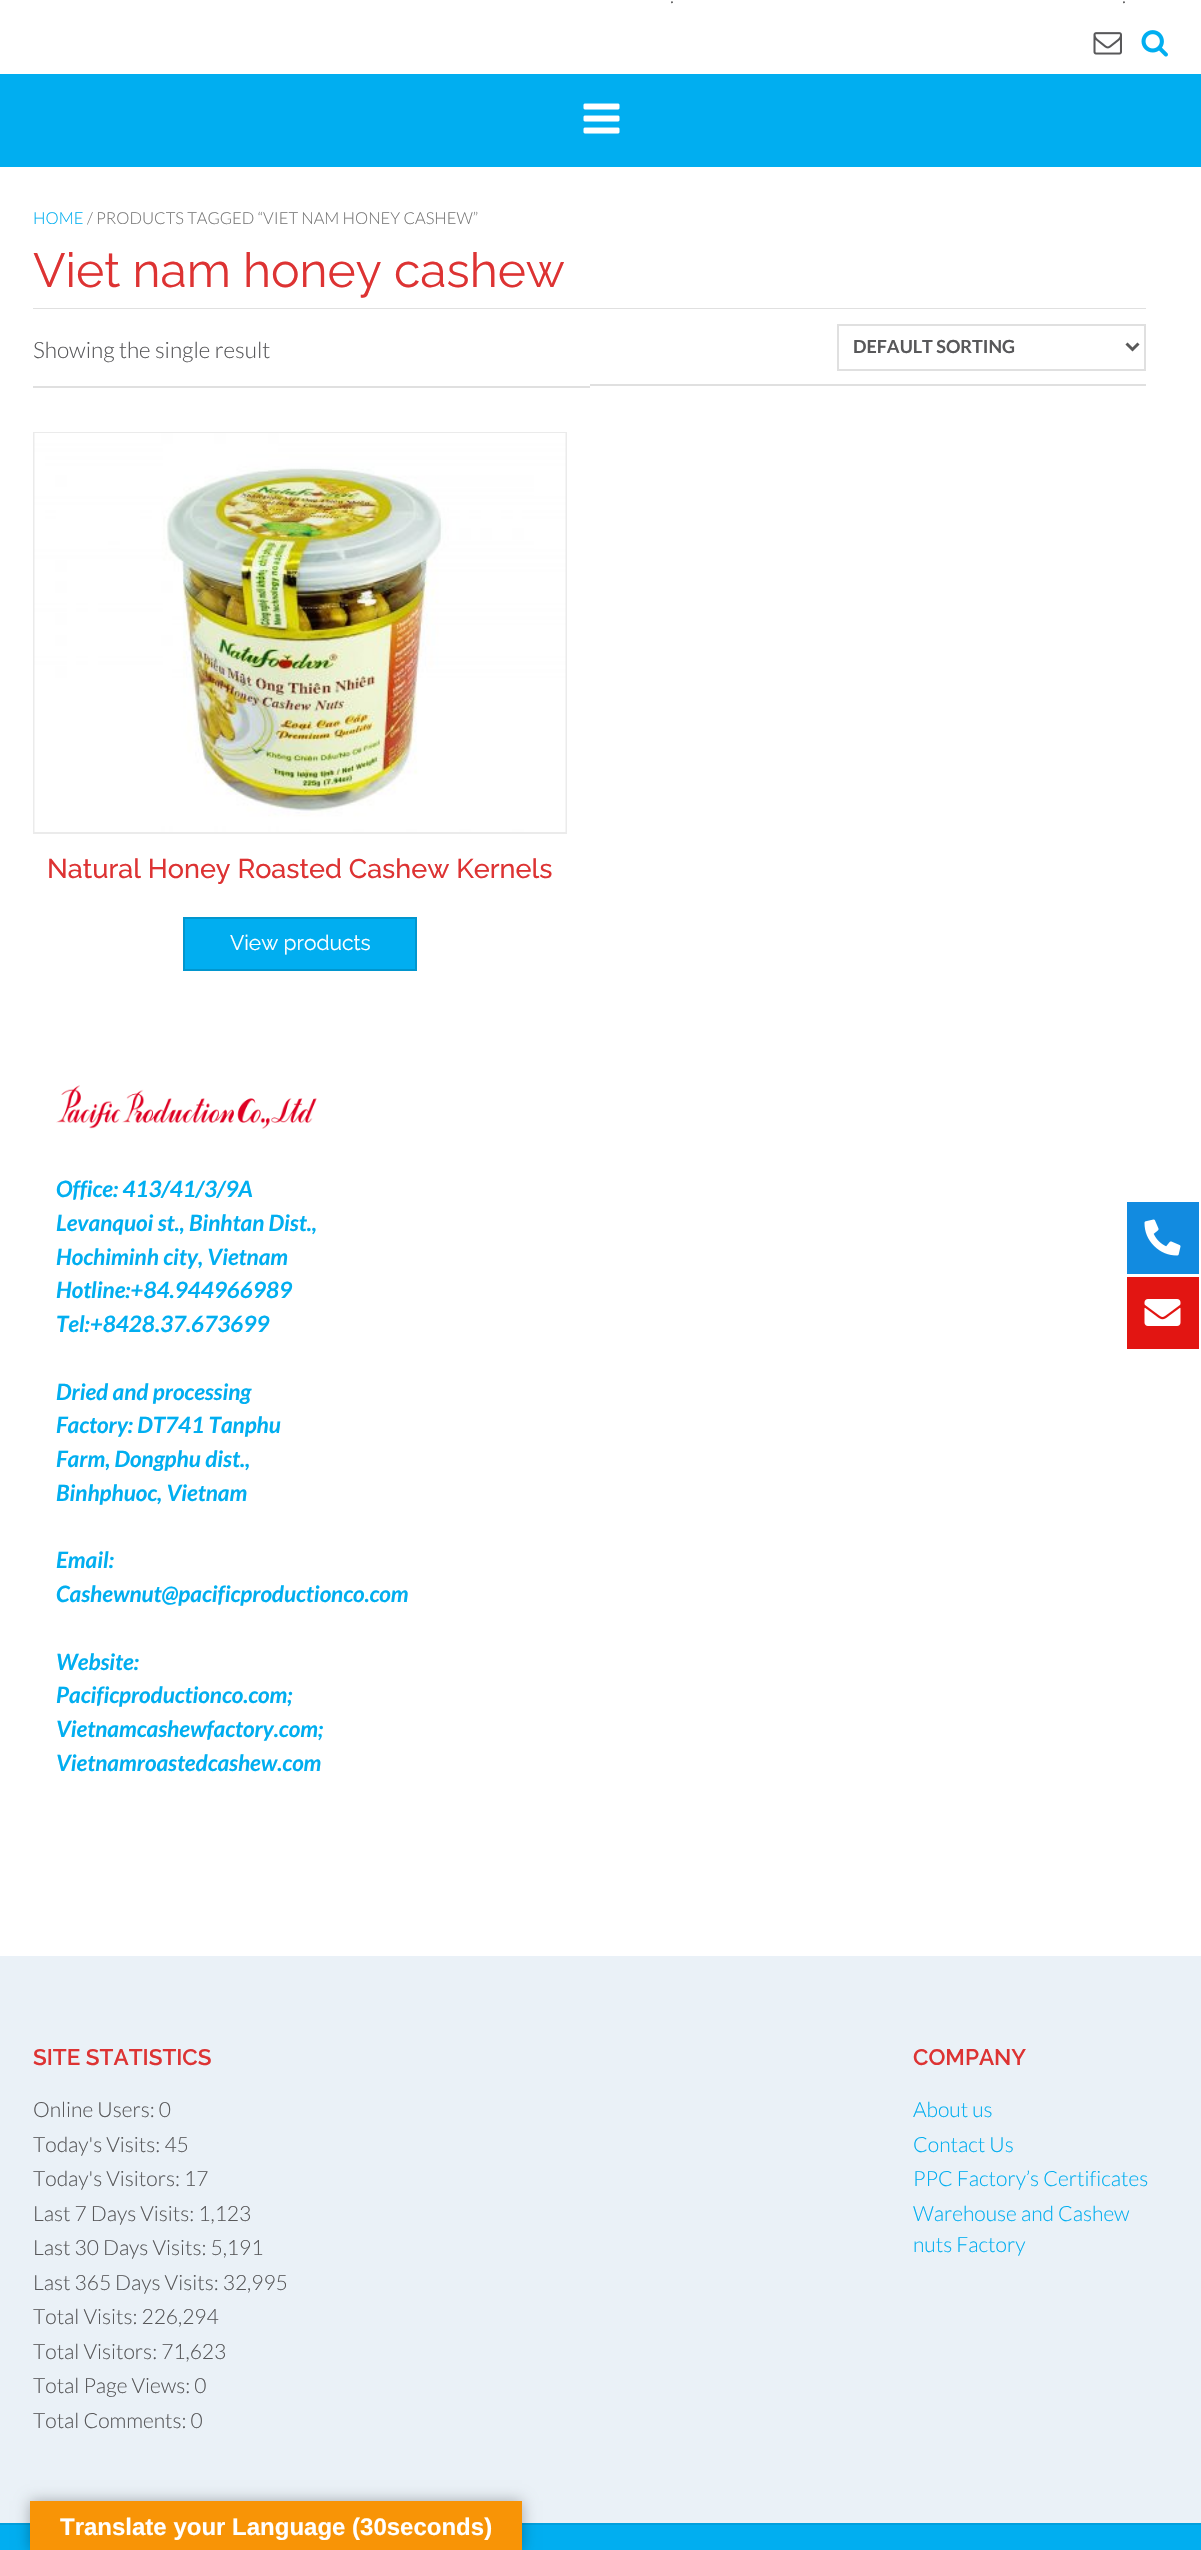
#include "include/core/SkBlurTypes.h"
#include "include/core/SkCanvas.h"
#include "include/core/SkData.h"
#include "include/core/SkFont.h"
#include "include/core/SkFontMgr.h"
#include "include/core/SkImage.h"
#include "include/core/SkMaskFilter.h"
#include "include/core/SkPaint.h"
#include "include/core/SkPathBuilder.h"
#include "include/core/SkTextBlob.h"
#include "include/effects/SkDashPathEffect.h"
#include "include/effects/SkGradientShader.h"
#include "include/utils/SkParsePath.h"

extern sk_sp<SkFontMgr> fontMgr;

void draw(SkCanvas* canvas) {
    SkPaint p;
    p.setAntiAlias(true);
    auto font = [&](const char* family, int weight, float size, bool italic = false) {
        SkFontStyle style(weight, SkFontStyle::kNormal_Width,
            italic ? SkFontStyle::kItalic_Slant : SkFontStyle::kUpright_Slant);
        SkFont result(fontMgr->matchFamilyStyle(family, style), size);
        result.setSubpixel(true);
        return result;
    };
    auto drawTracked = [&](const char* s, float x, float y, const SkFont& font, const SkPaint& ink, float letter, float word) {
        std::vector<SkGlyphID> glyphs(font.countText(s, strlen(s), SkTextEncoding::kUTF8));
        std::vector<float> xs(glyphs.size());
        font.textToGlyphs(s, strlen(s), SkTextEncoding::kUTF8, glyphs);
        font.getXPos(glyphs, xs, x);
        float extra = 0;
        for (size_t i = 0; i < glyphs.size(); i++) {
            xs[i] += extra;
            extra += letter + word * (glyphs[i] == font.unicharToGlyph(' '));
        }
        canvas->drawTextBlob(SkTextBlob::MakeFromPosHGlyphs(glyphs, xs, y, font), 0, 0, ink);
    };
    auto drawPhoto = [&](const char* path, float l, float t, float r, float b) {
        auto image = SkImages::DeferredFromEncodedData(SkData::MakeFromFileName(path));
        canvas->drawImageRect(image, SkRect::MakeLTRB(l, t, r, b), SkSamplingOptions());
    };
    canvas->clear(0xFFFFFFFF);
    auto font1 = font("Lato", 300, 20);
    p.setColor(0xFF58585A);
    drawTracked(".", 670, 3, font1, p, 2, 0);
    drawTracked(".", 1122, 3, font1, p, 2, 0);
    drawPhoto("media/1.png", 1093, 32, 1122, 55);
    drawPhoto("media/2.png", 1141, 30, 1168, 57);
    p.setColor(0xFF01AEF0);
    canvas->drawRect(SkRect::MakeLTRB(0, 74, 1201, 167), p);
    drawPhoto("media/3.png", 583, 103, 620, 134);
    auto font2 = font("Lato", 300, 16.5f);
    canvas->drawString("HOME", 33, 224, font2, p);
    p.setColor(0xFF777777);
    canvas->drawString("/ PRODUCTS TAGGED “VIET NAM HONEY CASHEW”", 87, 224, font2, p);
    auto font3 = font("Raleway", 400, 48);
    p.setColor(0xFFDD3333);
    canvas->drawString("Viet nam honey cashew", 33, 287, font3, p);
    p.setColor(0xFFE0E0E0);
    canvas->drawPath(SkPathBuilder().moveTo(33, 308).lineTo(33, 309).lineTo(590, 309).lineTo(590, 386).lineTo(590, 308).close().detach(), p);
    canvas->drawRect(SkRect::MakeLTRB(33, 386, 590, 388), p);
    auto font4 = font("Lato", 300, 22.5f);
    p.setColor(0xFF58585A);
    canvas->drawString("Showing the single result", 33, 358, font4, p);
    p.setColor(0xFFE0E0E0);
    canvas->drawRect(SkRect::MakeLTRB(590, 308, 1146, 309), p);
    canvas->drawRect(SkRect::MakeLTRB(590, 384, 1146, 386), p);
    p.setStyle(SkPaint::kStroke_Style);
    p.setStrokeWidth(2);
    canvas->drawRect(SkRect::MakeLTRB(838, 325, 1145, 370), p);
    p.setStrokeWidth(3);
    p.setColor(0xFF595959);
    canvas->drawPath(SkPathBuilder().moveTo(1126.5f, 343.5f).lineTo(1132.5f, 349.5f).lineTo(1138.5f, 343.5f).detach(), p);
    auto font5 = font("Lato", 700, 18);
    p.setStyle(SkPaint::kFill_Style);
    p.setColor(0xFF58585A);
    canvas->drawString("DEFAULT SORTING", 853, 353, font5, p);
    p.setStyle(SkPaint::kStroke_Style);
    p.setStrokeWidth(2);
    p.setColor(0xFFEBEBEB);
    canvas->drawRect(SkRect::MakeLTRB(34, 433, 566, 833), p);
    drawPhoto("media/4.png", 34, 433, 566, 832);
    auto font6 = font("Raleway", 500, 27);
    p.setStyle(SkPaint::kFill_Style);
    p.setColor(0xFFDD3333);
    canvas->drawString("Natural Honey Roasted Cashew Kernels", 47, 878, font6, p);
    p.setColor(0xFF01AEF0);
    canvas->drawRect(SkRect::MakeLTRB(184, 918, 416, 970), p);
    p.setStyle(SkPaint::kStroke_Style);
    p.setColor(0xFF0196CE);
    canvas->drawRect(SkRect::MakeLTRB(184, 918, 416, 970), p);
    auto font7 = font("Raleway", 400, 21);
    p.setStyle(SkPaint::kFill_Style);
    p.setColor(0xFFFFFFFF);
    canvas->drawString("View products", 230, 950, font7, p);
    drawPhoto("media/5.png", 56, 1085, 317, 1129);
    auto font8 = font("Lato", 700, 22.5f, true);
    p.setColor(0xFF01AEF0);
    {
        const struct { const char* s; float x, y; } items[] = {
            {"Office: 413/41/3/9A", 56, 1197},
            {"Levanquoi st., Binhtan Dist.,", 56, 1231},
            {"Hochiminh city, Vietnam", 56, 1265},
            {"Hotline:+84.944966989", 56, 1298},
            {"Tel:+8428.37.673699", 56, 1332},
            {"Dried and processing", 56, 1400},
            {"Factory: DT741 Tanphu", 56, 1433},
            {"Farm, Dongphu dist.,", 56, 1467},
            {"Binhphuoc, Vietnam", 56, 1501},
            {"Email:", 56, 1568},
            {"Cashewnut@pacificproductionco.com", 56, 1602},
            {"Website:", 56, 1670},
            {"Pacificproductionco.com;", 56, 1703},
            {"Vietnamcashewfactory.com;", 56, 1737},
            {"Vietnamroastedcashew.com", 56, 1771},
        };
        for (auto [s, x, y] : items) {
            canvas->drawString(s, x, y, font8, p);
        }
    }
    p.setColor(0xFF128BE0);
    canvas->drawRect(SkRect::MakeLTRB(1127, 1202, 1199, 1274), p);
    drawPhoto("media/6.png", 1144, 1219, 1181, 1256);
    p.setColor(0xFFE21512);
    canvas->drawRect(SkRect::MakeLTRB(1127, 1277, 1199, 1349), p);
    drawPhoto("media/7.png", 1144, 1299, 1181, 1326);
    p.setColor(0xFFEAF1F7);
    canvas->drawRect(SkRect::MakeLTRB(0, 1956, 1201, 2523), p);
    auto font9 = font("Raleway", 600, 22.5f);
    p.setColor(0xFFDD3333);
    canvas->drawString("SITE STATISTICS", 33, 2065, font9, p);
    auto font10 = font("Lato", 300, 21);
    p.setColor(0xFF58585A);
    {
        const struct { const char* s; float x, y; } items[] = {
            {"Online Users: 0", 33, 2117},
            {"Today's Visits: 45", 33, 2152},
            {"Today's Visitors: 17", 33, 2186},
            {"Last 7 Days Visits: 1,123", 33, 2221},
            {"Last 30 Days Visits: 5,191", 33, 2255},
            {"Last 365 Days Visits: 32,995", 33, 2290},
            {"Total Visits: 226,294", 33, 2324},
            {"Total Visitors: 71,623", 33, 2359},
            {"Total Page Views: 0", 33, 2393},
            {"Total Comments: 0", 33, 2428},
        };
        for (auto [s, x, y] : items) {
            canvas->drawString(s, x, y, font10, p);
        }
    }
    p.setColor(0xFFDD3333);
    canvas->drawString("COMPANY", 913, 2065, font9, p);
    p.setColor(0xFF01AEF0);
    {
        const struct { const char* s; float x, y; } items[] = {
            {"About us", 913, 2117},
            {"Contact Us", 913, 2152},
            {"PPC Factory’s Certificates", 913, 2186},
            {"Warehouse and Cashew", 913, 2221},
            {"nuts Factory", 913, 2252},
        };
        for (auto [s, x, y] : items) {
            canvas->drawString(s, x, y, font10, p);
        }
    }
    canvas->drawRect(SkRect::MakeLTRB(0, 2525, 1201, 2550), p);
    p.setColor(0xFF01A0DD);
    canvas->drawRect(SkRect::MakeLTRB(0, 2523, 1201, 2525), p);
    p.setColor(0x4D000000);
    p.setMaskFilter(SkMaskFilter::MakeBlur(kNormal_SkBlurStyle, 7));
    canvas->drawRect(SkRect::MakeLTRB(30, 2501, 522, 2550), p);
    p.setMaskFilter(nullptr);
    p.setColor(0xFFF89406);
    canvas->drawRect(SkRect::MakeLTRB(30, 2501, 522, 2550), p);
    auto font11 = font("Liberation Sans", 700, 24);
    p.setColor(0xFFFFFFFF);
    canvas->drawString("Translate your Language (30seconds)", 60, 2535, font11, p);
}
